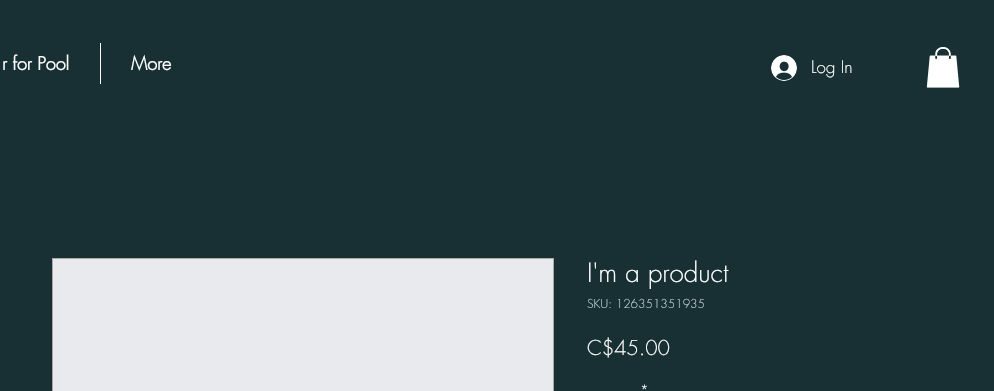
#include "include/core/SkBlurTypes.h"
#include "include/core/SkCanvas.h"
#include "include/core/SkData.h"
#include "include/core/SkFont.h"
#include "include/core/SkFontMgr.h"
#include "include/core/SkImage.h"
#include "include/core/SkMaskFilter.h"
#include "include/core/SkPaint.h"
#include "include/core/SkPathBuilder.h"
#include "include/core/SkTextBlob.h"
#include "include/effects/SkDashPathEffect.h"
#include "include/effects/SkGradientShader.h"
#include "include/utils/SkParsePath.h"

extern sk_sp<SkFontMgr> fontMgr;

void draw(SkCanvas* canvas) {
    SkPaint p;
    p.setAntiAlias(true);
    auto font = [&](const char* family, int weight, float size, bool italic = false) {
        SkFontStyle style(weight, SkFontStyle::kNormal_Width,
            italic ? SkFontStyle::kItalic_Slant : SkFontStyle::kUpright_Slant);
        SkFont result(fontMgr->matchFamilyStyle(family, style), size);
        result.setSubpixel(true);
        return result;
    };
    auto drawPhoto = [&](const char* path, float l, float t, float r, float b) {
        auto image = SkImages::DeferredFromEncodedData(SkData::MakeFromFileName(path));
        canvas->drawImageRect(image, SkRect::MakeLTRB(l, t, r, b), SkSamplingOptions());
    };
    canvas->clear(0xFF183033);
    auto font1 = font("futura", 700, 18);
    p.setColor(0xFFFFFFFF);
    canvas->drawString("r for Pool", 2, 70, font1, p);
    canvas->drawRect(SkRect::MakeLTRB(100, 43, 101, 84), p);
    canvas->drawString("More", 131, 70, font1, p);
    drawPhoto("media/1.png", 771, 55, 797, 81);
    auto font2 = font("futura", 300, 17);
    canvas->drawString("Log In", 811, 73, font2, p);
    drawPhoto("media/2.png", 926, 47, 960, 88);
    p.setStyle(SkPaint::kStroke_Style);
    p.setStrokeWidth(1);
    p.setColor(0xFFA8A8A7);
    canvas->drawRect(SkRect::MakeLTRB(52.5f, 258.5f, 553.5f, 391.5f), p);
    p.setStyle(SkPaint::kFill_Style);
    p.setColor(0xFFE8EAEE);
    canvas->drawRect(SkRect::MakeLTRB(53, 259, 553, 391), p);
    auto font3 = font("futura", 300, 26);
    p.setColor(0xFFFFFFFF);
    canvas->drawString("I'm a product", 587, 282, font3, p);
    auto font4 = font("futura", 300, 12);
    p.setColor(0xFFC0D4D6);
    canvas->drawString("SKU: 126351351935", 587, 308, font4, p);
    auto font5 = font("futura", 300, 20);
    p.setColor(0xFFFFFFFF);
    canvas->drawString("C$45.00", 587, 355, font5, p);
    auto font6 = font("futura", 300, 14);
    canvas->drawString("*", 640, 395, font6, p);
}
